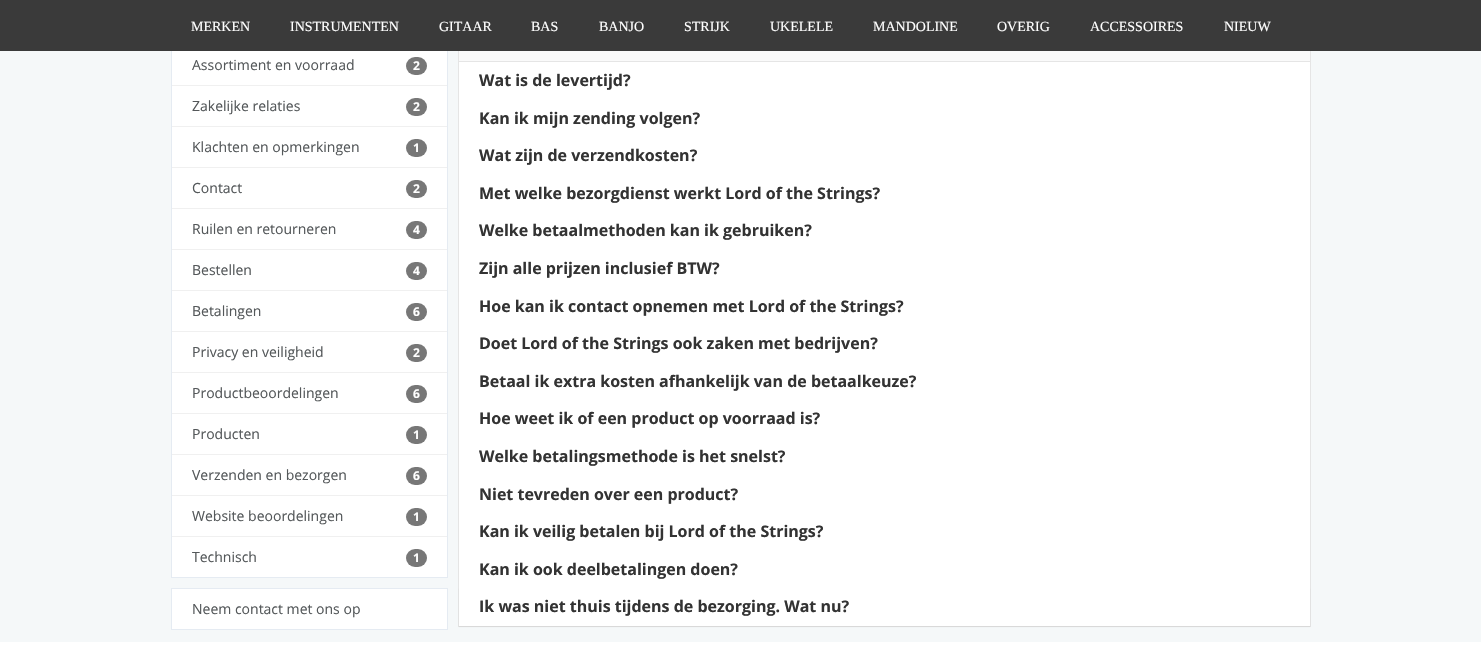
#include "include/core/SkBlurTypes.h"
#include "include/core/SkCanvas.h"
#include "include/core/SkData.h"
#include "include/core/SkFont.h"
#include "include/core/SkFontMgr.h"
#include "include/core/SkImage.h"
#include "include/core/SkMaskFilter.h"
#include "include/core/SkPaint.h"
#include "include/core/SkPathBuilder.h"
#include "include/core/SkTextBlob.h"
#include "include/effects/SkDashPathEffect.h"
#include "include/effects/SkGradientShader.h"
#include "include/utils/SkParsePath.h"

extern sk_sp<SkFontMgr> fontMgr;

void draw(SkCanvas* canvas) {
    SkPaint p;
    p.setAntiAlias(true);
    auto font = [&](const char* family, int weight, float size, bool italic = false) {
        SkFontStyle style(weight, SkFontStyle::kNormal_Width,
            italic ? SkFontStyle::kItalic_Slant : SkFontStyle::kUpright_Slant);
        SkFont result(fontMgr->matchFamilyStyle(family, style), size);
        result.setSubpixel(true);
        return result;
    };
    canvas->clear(0xFFF5F8F9);
    p.setColor(0xFFFFFFFF);
    canvas->drawRect(SkRect::MakeLTRB(172, 51, 447, 577), p);
    p.setStyle(SkPaint::kStroke_Style);
    p.setStrokeWidth(1);
    p.setColor(0xFFE5EBF2);
    canvas->drawRect(SkRect::MakeLTRB(171.5f, -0.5f, 447.5f, 577.5f), p);
    p.setStyle(SkPaint::kFill_Style);
    p.setColor(0xFFFFFFFF);
    canvas->drawRect(SkRect::MakeLTRB(459, 62, 1310, 100), p);
    p.setStyle(SkPaint::kStroke_Style);
    p.setColor(0xFFE5E5E5);
    canvas->drawRect(SkRect::MakeLTRB(458.5f, -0.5f, 1310.5f, 626.5f), p);
    p.setStyle(SkPaint::kFill_Style);
    p.setColor(0xFF3A3A3A);
    canvas->drawRect(SkRect::MakeLTRB(0, 0, 1481, 51), p);
    auto font1 = font("Liberation Serif", 400, 14);
    p.setColor(0xFFFFFFFF);
    {
        const struct { const char* s; float x, y; } items[] = {
            {"MERKEN", 191, 31},
            {"INSTRUMENTEN", 290, 31},
            {"GITAAR", 439, 31},
            {"BAS", 531, 31},
            {"BANJO", 599, 31},
            {"STRIJK", 684, 31},
            {"UKELELE", 770, 31},
            {"MANDOLINE", 873, 31},
            {"OVERIG", 997, 31},
            {"ACCESSOIRES", 1090, 31},
            {"NIEUW", 1224, 31},
        };
        for (auto [s, x, y] : items) {
            canvas->drawString(s, x, y, font1, p);
        }
    }
    p.setColor(0xFFF0F0F0);
    canvas->drawRect(SkRect::MakeLTRB(172, 85, 447, 86), p);
    auto font2 = font("Open Sans", 400, 14);
    p.setColor(0xFF54585A);
    canvas->drawString("Assortiment en voorraad", 192, 70, font2, p);
    p.setColor(0xFF777777);
    canvas->drawRoundRect(SkRect::MakeLTRB(406, 57, 427, 75), 9, 9, p);
    auto font3 = font("Open Sans", 700, 12);
    p.setColor(0xFFFFFFFF);
    canvas->drawString("2", 413, 70, font3, p);
    p.setColor(0xFFF0F0F0);
    canvas->drawRect(SkRect::MakeLTRB(172, 126, 447, 127), p);
    p.setColor(0xFF54585A);
    canvas->drawString("Zakelijke relaties", 192, 111, font2, p);
    p.setColor(0xFF777777);
    canvas->drawRoundRect(SkRect::MakeLTRB(406, 98, 427, 116), 9, 9, p);
    p.setColor(0xFFFFFFFF);
    canvas->drawString("2", 413, 111, font3, p);
    p.setColor(0xFFF0F0F0);
    canvas->drawRect(SkRect::MakeLTRB(172, 167, 447, 168), p);
    p.setColor(0xFF54585A);
    canvas->drawString("Klachten en opmerkingen", 192, 152, font2, p);
    p.setColor(0xFF777777);
    canvas->drawRoundRect(SkRect::MakeLTRB(406, 139, 427, 157), 9, 9, p);
    p.setColor(0xFFFFFFFF);
    canvas->drawString("1", 413, 152, font3, p);
    p.setColor(0xFFF0F0F0);
    canvas->drawRect(SkRect::MakeLTRB(172, 208, 447, 209), p);
    p.setColor(0xFF54585A);
    canvas->drawString("Contact", 192, 193, font2, p);
    p.setColor(0xFF777777);
    canvas->drawRoundRect(SkRect::MakeLTRB(406, 180, 427, 198), 9, 9, p);
    p.setColor(0xFFFFFFFF);
    canvas->drawString("2", 413, 193, font3, p);
    p.setColor(0xFFF0F0F0);
    canvas->drawRect(SkRect::MakeLTRB(172, 249, 447, 250), p);
    p.setColor(0xFF54585A);
    canvas->drawString("Ruilen en retourneren", 192, 234, font2, p);
    p.setColor(0xFF777777);
    canvas->drawRoundRect(SkRect::MakeLTRB(406, 221, 427, 239), 9, 9, p);
    p.setColor(0xFFFFFFFF);
    canvas->drawString("4", 413, 234, font3, p);
    p.setColor(0xFFF0F0F0);
    canvas->drawRect(SkRect::MakeLTRB(172, 290, 447, 291), p);
    p.setColor(0xFF54585A);
    canvas->drawString("Bestellen", 192, 275, font2, p);
    p.setColor(0xFF777777);
    canvas->drawRoundRect(SkRect::MakeLTRB(406, 262, 427, 280), 9, 9, p);
    p.setColor(0xFFFFFFFF);
    canvas->drawString("4", 413, 275, font3, p);
    p.setColor(0xFFF0F0F0);
    canvas->drawRect(SkRect::MakeLTRB(172, 331, 447, 332), p);
    p.setColor(0xFF54585A);
    canvas->drawString("Betalingen", 192, 316, font2, p);
    p.setColor(0xFF777777);
    canvas->drawRoundRect(SkRect::MakeLTRB(406, 303, 427, 321), 9, 9, p);
    p.setColor(0xFFFFFFFF);
    canvas->drawString("6", 413, 316, font3, p);
    p.setColor(0xFFF0F0F0);
    canvas->drawRect(SkRect::MakeLTRB(172, 372, 447, 373), p);
    p.setColor(0xFF54585A);
    canvas->drawString("Privacy en veiligheid", 192, 357, font2, p);
    p.setColor(0xFF777777);
    canvas->drawRoundRect(SkRect::MakeLTRB(406, 344, 427, 362), 9, 9, p);
    p.setColor(0xFFFFFFFF);
    canvas->drawString("2", 413, 357, font3, p);
    p.setColor(0xFFF0F0F0);
    canvas->drawRect(SkRect::MakeLTRB(172, 413, 447, 414), p);
    p.setColor(0xFF54585A);
    canvas->drawString("Productbeoordelingen", 192, 398, font2, p);
    p.setColor(0xFF777777);
    canvas->drawRoundRect(SkRect::MakeLTRB(406, 385, 427, 403), 9, 9, p);
    p.setColor(0xFFFFFFFF);
    canvas->drawString("6", 413, 398, font3, p);
    p.setColor(0xFFF0F0F0);
    canvas->drawRect(SkRect::MakeLTRB(172, 454, 447, 455), p);
    p.setColor(0xFF54585A);
    canvas->drawString("Producten", 192, 439, font2, p);
    p.setColor(0xFF777777);
    canvas->drawRoundRect(SkRect::MakeLTRB(406, 426, 427, 444), 9, 9, p);
    p.setColor(0xFFFFFFFF);
    canvas->drawString("1", 413, 439, font3, p);
    p.setColor(0xFFF0F0F0);
    canvas->drawRect(SkRect::MakeLTRB(172, 495, 447, 496), p);
    p.setColor(0xFF54585A);
    canvas->drawString("Verzenden en bezorgen", 192, 480, font2, p);
    p.setColor(0xFF777777);
    canvas->drawRoundRect(SkRect::MakeLTRB(406, 467, 427, 485), 9, 9, p);
    p.setColor(0xFFFFFFFF);
    canvas->drawString("6", 413, 480, font3, p);
    p.setColor(0xFFF0F0F0);
    canvas->drawRect(SkRect::MakeLTRB(172, 536, 447, 537), p);
    p.setColor(0xFF54585A);
    canvas->drawString("Website beoordelingen", 192, 521, font2, p);
    p.setColor(0xFF777777);
    canvas->drawRoundRect(SkRect::MakeLTRB(406, 508, 427, 526), 9, 9, p);
    p.setColor(0xFFFFFFFF);
    canvas->drawString("1", 413, 521, font3, p);
    p.setColor(0xFF54585A);
    canvas->drawString("Technisch", 192, 562, font2, p);
    p.setColor(0xFF777777);
    canvas->drawRoundRect(SkRect::MakeLTRB(406, 549, 427, 567), 9, 9, p);
    p.setColor(0xFFFFFFFF);
    canvas->drawString("1", 413, 562, font3, p);
    canvas->drawRect(SkRect::MakeLTRB(171.5f, 588.5f, 447.5f, 629.5f), p);
    p.setStyle(SkPaint::kStroke_Style);
    p.setColor(0xFFE5EBF2);
    canvas->drawRect(SkRect::MakeLTRB(171.5f, 588.5f, 447.5f, 629.5f), p);
    p.setStyle(SkPaint::kFill_Style);
    p.setColor(0xFF54585A);
    canvas->drawString("Neem contact met ons op", 192, 614, font2, p);
    p.setColor(0xFFFAFAFA);
    canvas->drawRect(SkRect::MakeLTRB(459, 51, 1310, 61), p);
    p.setColor(0xFFE5E5E5);
    canvas->drawRect(SkRect::MakeLTRB(459, 61, 1310, 62), p);
    auto font4 = font("Open Sans", 700, 16);
    p.setColor(0xFF333333);
    canvas->drawString("Wat is de levertijd?", 479, 86, font4, p);
    p.setColor(0xFFFFFFFF);
    canvas->drawRect(SkRect::MakeLTRB(459, 100, 1310, 588), p);
    p.setColor(0xFF333333);
    {
        const struct { const char* s; float x, y; } items[] = {
            {"Kan ik mijn zending volgen?", 479, 124},
            {"Wat zijn de verzendkosten?", 479, 161},
            {"Met welke bezorgdienst werkt Lord of the Strings?", 479, 199},
            {"Welke betaalmethoden kan ik gebruiken?", 479, 236},
            {"Zijn alle prijzen inclusief BTW?", 479, 274},
            {"Hoe kan ik contact opnemen met Lord of the Strings?", 479, 312},
            {"Doet Lord of the Strings ook zaken met bedrijven?", 479, 349},
            {"Betaal ik extra kosten afhankelijk van de betaalkeuze?", 479, 387},
            {"Hoe weet ik of een product op voorraad is?", 479, 424},
            {"Welke betalingsmethode is het snelst?", 479, 462},
            {"Niet tevreden over een product?", 479, 500},
            {"Kan ik veilig betalen bij Lord of the Strings?", 479, 537},
            {"Kan ik ook deelbetalingen doen?", 479, 575},
        };
        for (auto [s, x, y] : items) {
            canvas->drawString(s, x, y, font4, p);
        }
    }
    p.setColor(0x0D000000);
    p.setMaskFilter(SkMaskFilter::MakeBlur(kNormal_SkBlurStyle, 0.5f));
    canvas->drawRect(SkRect::MakeLTRB(459, 589, 1310, 627), p);
    p.setMaskFilter(nullptr);
    p.setColor(0xFFFFFFFF);
    canvas->drawRect(SkRect::MakeLTRB(459, 588, 1310, 626), p);
    p.setColor(0xFF333333);
    canvas->drawString("Ik was niet thuis tijdens de bezorging. Wat nu?", 479, 612, font4, p);
    p.setColor(0xFFFFFFFF);
    canvas->drawRect(SkRect::MakeLTRB(0, 642, 1481, 653), p);
}
